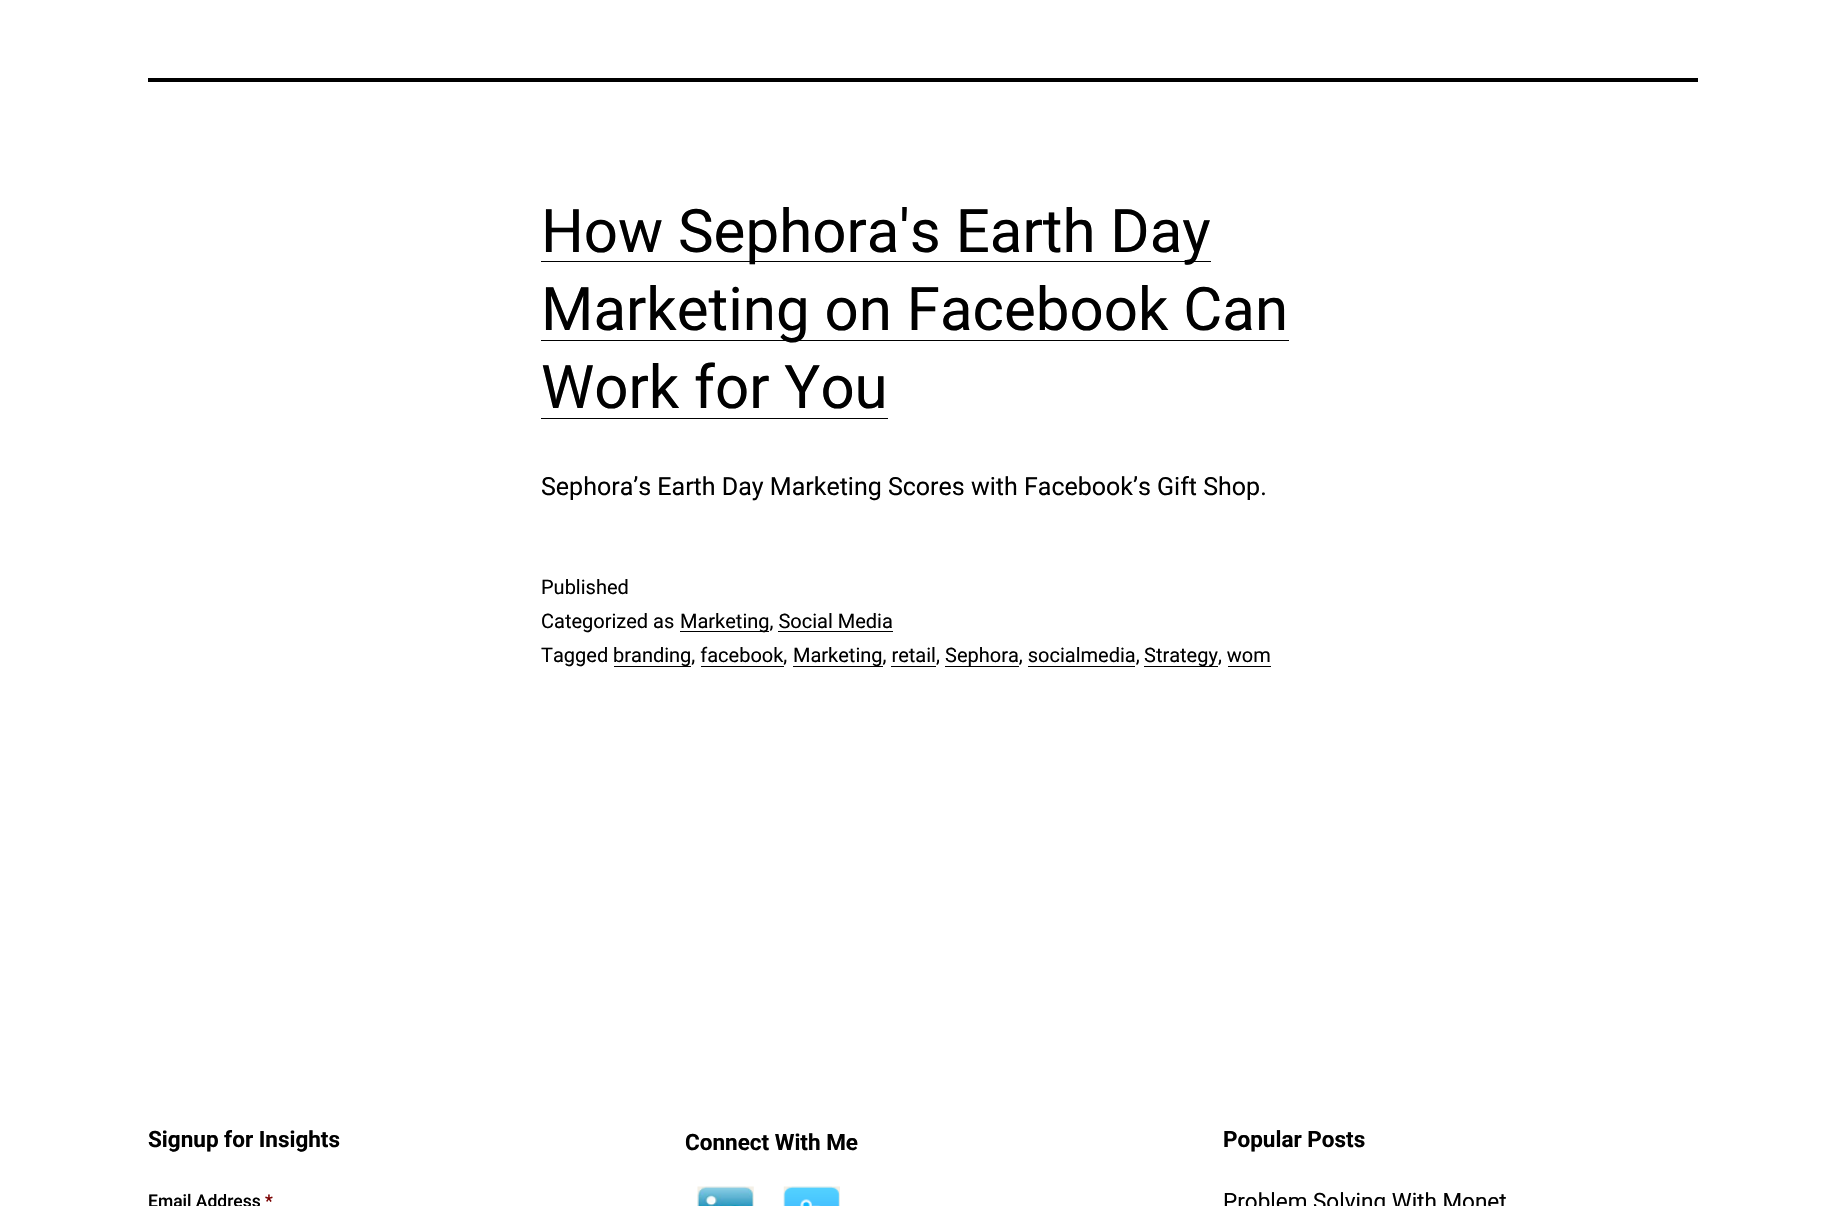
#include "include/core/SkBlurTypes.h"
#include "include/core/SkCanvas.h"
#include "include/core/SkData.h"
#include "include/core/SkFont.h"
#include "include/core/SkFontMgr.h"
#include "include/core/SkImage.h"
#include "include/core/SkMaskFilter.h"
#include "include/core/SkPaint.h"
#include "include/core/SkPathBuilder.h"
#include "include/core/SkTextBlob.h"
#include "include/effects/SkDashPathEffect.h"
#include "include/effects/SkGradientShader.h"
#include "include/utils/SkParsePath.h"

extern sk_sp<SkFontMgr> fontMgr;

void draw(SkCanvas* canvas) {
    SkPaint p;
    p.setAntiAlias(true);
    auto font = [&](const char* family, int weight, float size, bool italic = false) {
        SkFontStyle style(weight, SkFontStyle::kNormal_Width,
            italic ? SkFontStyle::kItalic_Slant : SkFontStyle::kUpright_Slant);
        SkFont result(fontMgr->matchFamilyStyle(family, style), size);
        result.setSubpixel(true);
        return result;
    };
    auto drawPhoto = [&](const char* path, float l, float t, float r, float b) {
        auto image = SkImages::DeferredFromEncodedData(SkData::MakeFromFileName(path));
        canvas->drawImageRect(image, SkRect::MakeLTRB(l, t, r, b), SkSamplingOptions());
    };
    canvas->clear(0xFFFFFFFF);
    p.setColor(0xFF000000);
    canvas->drawRect(SkRect::MakeLTRB(148, 78, 1698, 82), p);
    canvas->drawRect(SkRect::MakeLTRB(541, 261, 1211, 262), p);
    auto font1 = font("Roboto", 400, 60);
    canvas->drawString("How Sephora's Earth Day", 541, 252, font1, p);
    canvas->drawRect(SkRect::MakeLTRB(541, 340, 1289, 341), p);
    canvas->drawString("Marketing on Facebook Can", 541, 330, font1, p);
    canvas->drawString("Work for You", 541, 408, font1, p);
    canvas->drawRect(SkRect::MakeLTRB(541, 418, 888, 419), p);
    auto font2 = font("Roboto", 400, 25);
    canvas->drawString("Sephora’s Earth Day Marketing Scores with Facebook’s Gift Shop.", 541, 495, font2, p);
    auto font3 = font("Roboto", 400, 20);
    canvas->drawString("Published", 541, 594, font3, p);
    canvas->drawString("Categorized as", 541, 628, font3, p);
    canvas->drawRect(SkRect::MakeLTRB(680, 631, 769, 632), p);
    canvas->drawString("Marketing, Social Media", 680, 628, font3, p);
    canvas->drawRect(SkRect::MakeLTRB(778, 631, 893, 632), p);
    canvas->drawString("Tagged", 541, 662, font3, p);
    canvas->drawRect(SkRect::MakeLTRB(614, 666, 691, 667), p);
    canvas->drawString("branding, facebook,", 613, 662, font3, p);
    canvas->drawRect(SkRect::MakeLTRB(793, 666, 883, 667), p);
    canvas->drawString("Marketing, retail,", 793, 662, font3, p);
    canvas->drawRect(SkRect::MakeLTRB(945, 666, 1019, 667), p);
    canvas->drawString("Sephora, socialmedia,", 945, 662, font3, p);
    canvas->drawRect(SkRect::MakeLTRB(1144, 666, 1218, 667), p);
    canvas->drawString("Strategy, wom", 1144, 662, font3, p);
    {
        const struct { float l, t, r, b; SkColor color; } items[] = {
            {701, 666, 784, 667, 0xFF000000},
            {891, 666, 936, 667, 0xFF000000},
            {1028, 666, 1135, 667, 0xFF000000},
            {1228, 666, 1271, 667, 0xFF000000},
        };
        for (auto [l, t, r, b, color] : items) {
            p.setColor(color);
            canvas->drawRect(SkRect::MakeLTRB(l, t, r, b), p);
        }
    }
    auto font4 = font("Roboto", 700, 22.5f);
    canvas->drawString("Signup for Insights", 148, 1147, font4, p);
    auto font5 = font("Roboto", 500, 17.5f);
    canvas->drawString("Email Address", 148, 1207, font5, p);
    p.setColor(0xFF790000);
    canvas->drawString("*", 265, 1207, font5, p);
    p.setColor(0xFF000000);
    canvas->drawString("Connect With Me", 685, 1150, font4, p);
    drawPhoto("media/1.png", 697, 1186, 754, 1206);
    drawPhoto("media/2.png", 783, 1186, 840, 1206);
    canvas->drawString("Popular Posts", 1223, 1147, font4, p);
    auto font6 = font("Roboto", 400, 22.5f);
    canvas->drawString("Problem Solving With Monet", 1223, 1209, font6, p);
}
